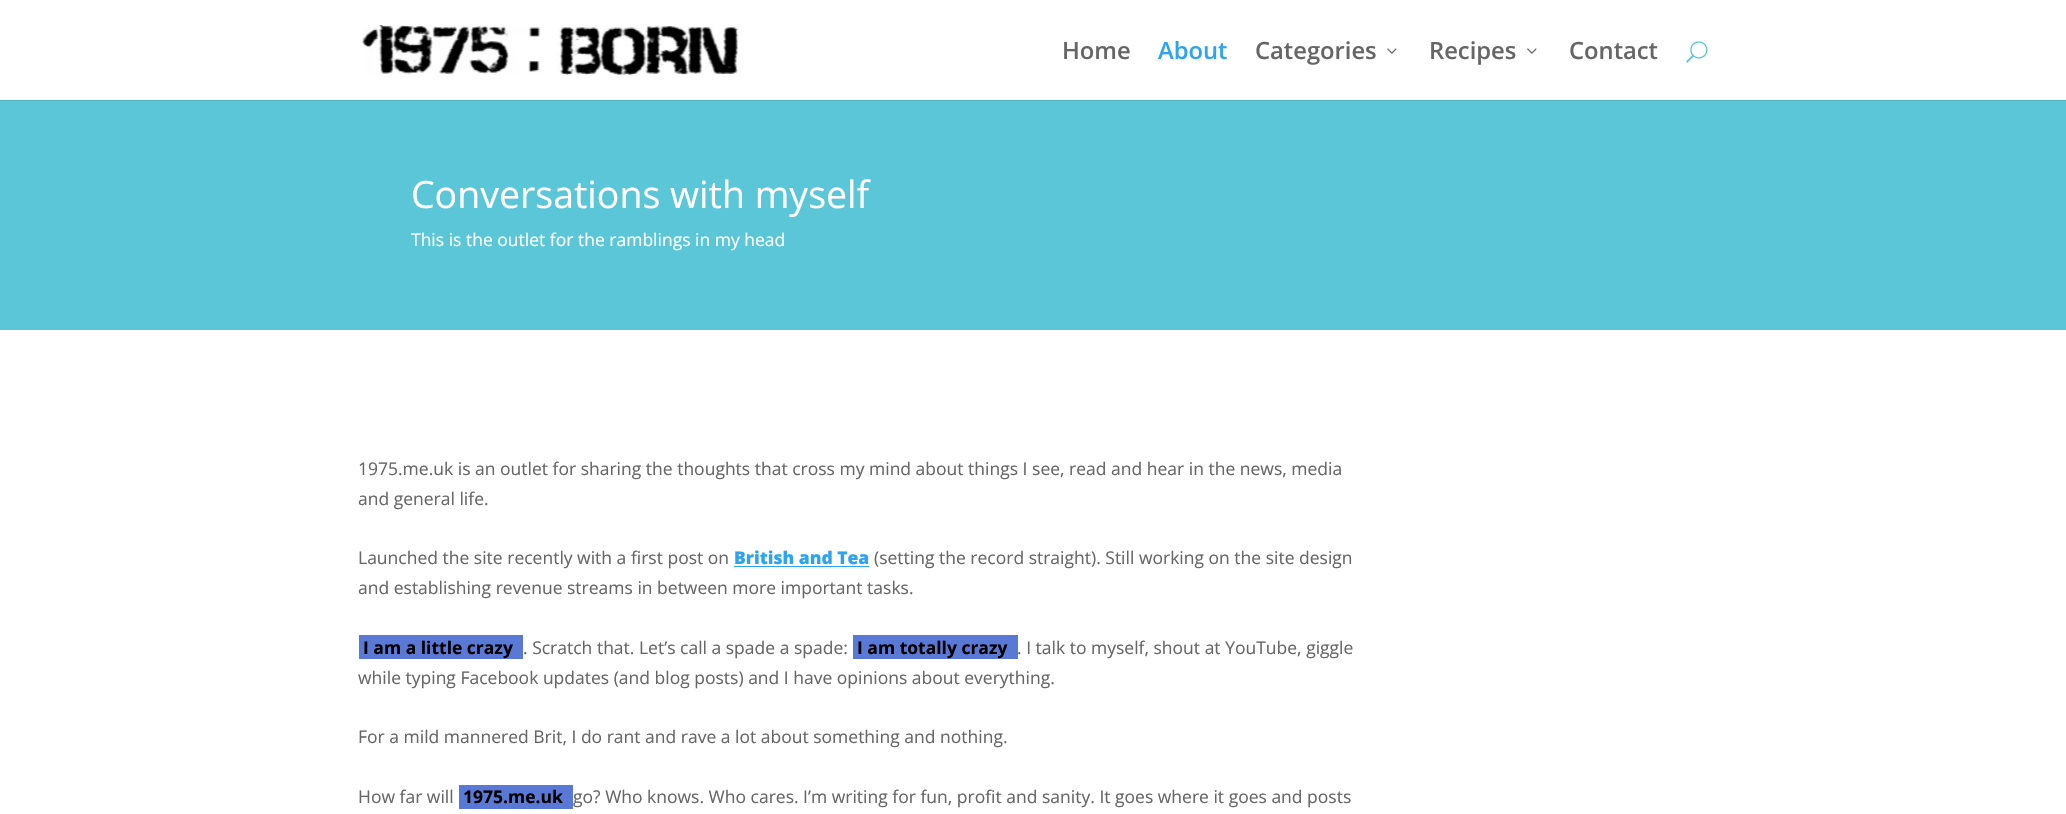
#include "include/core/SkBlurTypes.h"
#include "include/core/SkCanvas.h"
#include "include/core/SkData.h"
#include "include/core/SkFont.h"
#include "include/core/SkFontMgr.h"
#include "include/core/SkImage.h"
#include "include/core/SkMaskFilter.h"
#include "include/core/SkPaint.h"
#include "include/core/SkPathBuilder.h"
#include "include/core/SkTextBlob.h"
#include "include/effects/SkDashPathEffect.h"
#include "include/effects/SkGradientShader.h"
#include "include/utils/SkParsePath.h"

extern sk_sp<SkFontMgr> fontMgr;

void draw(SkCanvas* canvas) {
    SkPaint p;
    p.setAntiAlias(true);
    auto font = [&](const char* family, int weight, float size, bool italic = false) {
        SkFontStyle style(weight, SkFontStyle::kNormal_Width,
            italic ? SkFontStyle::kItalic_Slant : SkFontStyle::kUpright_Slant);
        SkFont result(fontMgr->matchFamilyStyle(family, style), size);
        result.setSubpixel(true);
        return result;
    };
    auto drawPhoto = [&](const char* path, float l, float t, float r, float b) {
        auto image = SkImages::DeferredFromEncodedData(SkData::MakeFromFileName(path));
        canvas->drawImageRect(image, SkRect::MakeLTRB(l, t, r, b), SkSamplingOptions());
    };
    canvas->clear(0xFFFFFFFF);
    p.setColor(0xFF51B2C2);
    canvas->drawRect(SkRect::MakeLTRB(0, 100, 2066, 101), p);
    drawPhoto("media/1.png", 362, 25, 738, 75);
    auto font1 = font("Open Sans", 600, 23.75f);
    p.setColor(0xFF666666);
    canvas->drawString("Home", 1062, 59, font1, p);
    p.setColor(0xFF2EA3F2);
    canvas->drawString("About", 1158, 59, font1, p);
    p.setColor(0xFF666666);
    canvas->drawString("Categories", 1255, 59, font1, p);
    drawPhoto("media/2.png", 1387, 48, 1397, 54);
    canvas->drawString("Recipes", 1429, 59, font1, p);
    drawPhoto("media/2.png", 1527, 48, 1537, 54);
    canvas->drawString("Contact", 1569, 59, font1, p);
    drawPhoto("media/3.png", 1686, 41, 1708, 63);
    p.setColor(0xFF5AC6D7);
    canvas->drawRect(SkRect::MakeLTRB(0, 101, 2066, 330), p);
    auto font2 = font("Open Sans", 400, 37.5f);
    p.setColor(0xFFFFFFFF);
    canvas->drawString("Conversations with myself", 411, 208, font2, p);
    auto font3 = font("Open Sans", 400, 17.5f);
    canvas->drawString("This is the outlet for the ramblings in my head", 411, 246, font3, p);
    p.setColor(0xFF666666);
    {
        const struct { const char* s; float x, y; } items[] = {
            {"1975.me.uk is an outlet for sharing the thoughts that cross my mind about things I see, read and hear in the news, media", 358, 475},
            {"and general life.", 358, 505},
            {"Launched the site recently with a first post on", 358, 564},
        };
        for (auto [s, x, y] : items) {
            canvas->drawString(s, x, y, font3, p);
        }
    }
    auto font4 = font("Open Sans", 800, 17.5f);
    p.setColor(0xFF2EA3F2);
    canvas->drawString("British and Tea", 734, 564, font4, p);
    canvas->drawRect(SkRect::MakeLTRB(734, 566, 869, 567), p);
    p.setColor(0xFF666666);
    canvas->drawString("(setting the record straight). Still working on the site design", 874, 564, font3, p);
    canvas->drawString("and establishing revenue streams in between more important tasks.", 358, 594, font3, p);
    p.setColor(0xFF5A79D7);
    canvas->drawRect(SkRect::MakeLTRB(359, 635, 523, 659), p);
    auto font5 = font("Open Sans", 700, 17.5f);
    p.setColor(0xFF000000);
    canvas->drawString("I am a little crazy", 363, 654, font5, p);
    p.setColor(0xFF666666);
    canvas->drawString(". Scratch that. Let’s call a spade a spade:", 523, 654, font3, p);
    p.setColor(0xFF5A79D7);
    canvas->drawRect(SkRect::MakeLTRB(853, 635, 1018, 659), p);
    p.setColor(0xFF000000);
    canvas->drawString("I am totally crazy", 857, 654, font5, p);
    p.setColor(0xFF666666);
    {
        const struct { const char* s; float x, y; } items[] = {
            {". I talk to myself, shout at YouTube, giggle", 1017, 654},
            {"while typing Facebook updates (and blog posts) and I have opinions about everything.", 358, 684},
            {"For a mild mannered Brit, I do rant and rave a lot about something and nothing.", 358, 743},
            {"How far will", 358, 803},
        };
        for (auto [s, x, y] : items) {
            canvas->drawString(s, x, y, font3, p);
        }
    }
    p.setColor(0xFF5A79D7);
    canvas->drawRect(SkRect::MakeLTRB(459, 785, 573, 809), p);
    p.setColor(0xFF000000);
    canvas->drawString("1975.me.uk", 463, 803, font5, p);
    p.setColor(0xFF666666);
    canvas->drawString("go? Who knows. Who cares. I’m writing for fun, profit and sanity. It goes where it goes and posts", 573, 803, font3, p);
}
